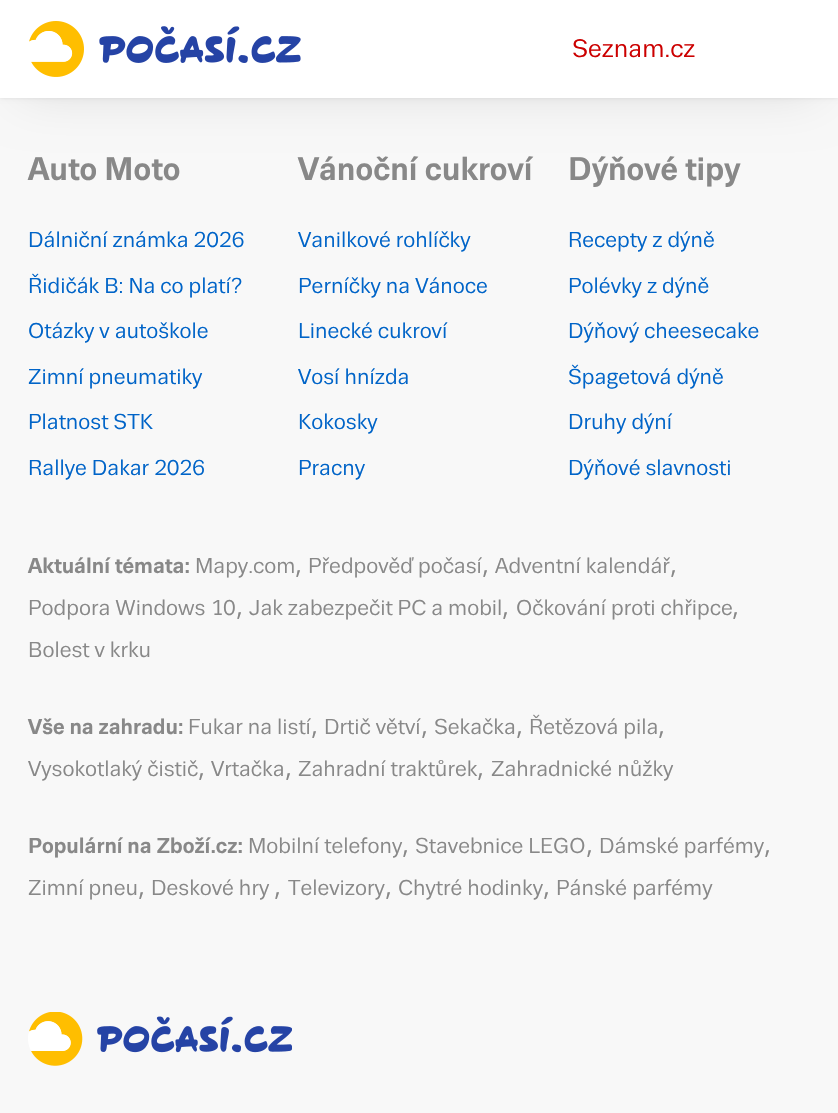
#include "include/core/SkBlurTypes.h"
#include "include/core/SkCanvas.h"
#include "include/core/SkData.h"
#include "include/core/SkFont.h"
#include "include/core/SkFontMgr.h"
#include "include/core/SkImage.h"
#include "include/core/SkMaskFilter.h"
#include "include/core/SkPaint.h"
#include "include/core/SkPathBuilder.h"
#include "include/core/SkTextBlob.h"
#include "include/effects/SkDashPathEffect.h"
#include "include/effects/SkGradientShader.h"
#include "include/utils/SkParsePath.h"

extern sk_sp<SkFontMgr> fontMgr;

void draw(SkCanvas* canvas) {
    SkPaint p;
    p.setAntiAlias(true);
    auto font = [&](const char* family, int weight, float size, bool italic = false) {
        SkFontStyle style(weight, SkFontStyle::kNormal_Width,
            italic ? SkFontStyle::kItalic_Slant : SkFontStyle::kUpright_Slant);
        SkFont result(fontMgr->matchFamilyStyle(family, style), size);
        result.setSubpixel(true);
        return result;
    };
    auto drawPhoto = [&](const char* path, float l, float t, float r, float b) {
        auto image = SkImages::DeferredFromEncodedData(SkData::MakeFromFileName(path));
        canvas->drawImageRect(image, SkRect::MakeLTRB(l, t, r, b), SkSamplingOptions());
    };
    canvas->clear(0xFFF8F8F8);
    p.setColor(0x1F000000);
    p.setMaskFilter(SkMaskFilter::MakeBlur(kNormal_SkBlurStyle, 26));
    canvas->drawRect(SkRect::MakeLTRB(21, 35, 817, 91), p);
    p.setMaskFilter(nullptr);
    p.setColor(0x1A000000);
    p.setMaskFilter(SkMaskFilter::MakeBlur(kNormal_SkBlurStyle, 2));
    canvas->drawRect(SkRect::MakeLTRB(0, 0, 838, 98), p);
    p.setMaskFilter(nullptr);
    p.setColor(0xFFFFFFFF);
    canvas->drawRect(SkRect::MakeLTRB(0, 0, 838, 98), p);
    drawPhoto("media/1.png", 29, 21, 301, 77);
    auto font1 = font("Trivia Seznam", 400, 24.5f);
    p.setColor(0xFFCC0000);
    canvas->drawString("Seznam.cz", 572, 57, font1, p);
    auto font2 = font("Trivia Seznam", 700, 31.5f);
    p.setColor(0xFF888888);
    canvas->drawString("Auto Moto", 28, 180, font2, p);
    auto font3 = font("Trivia Seznam", 400, 21);
    p.setColor(0xFF0064C8);
    {
        const struct { const char* s; float x, y; } items[] = {
            {"Dálniční známka 2026", 28, 247},
            {"Řidičák B: Na co platí?", 28, 293},
            {"Otázky v autoškole", 28, 338},
            {"Zimní pneumatiky", 28, 384},
            {"Platnost STK", 28, 429},
            {"Rallye Dakar 2026", 28, 475},
        };
        for (auto [s, x, y] : items) {
            canvas->drawString(s, x, y, font3, p);
        }
    }
    p.setColor(0xFF888888);
    canvas->drawString("Vánoční cukroví", 298, 180, font2, p);
    p.setColor(0xFF0064C8);
    {
        const struct { const char* s; float x, y; } items[] = {
            {"Vanilkové rohlíčky", 298, 247},
            {"Perníčky na Vánoce", 298, 293},
            {"Linecké cukroví", 298, 338},
            {"Vosí hnízda", 298, 384},
            {"Kokosky", 298, 429},
            {"Pracny", 298, 475},
        };
        for (auto [s, x, y] : items) {
            canvas->drawString(s, x, y, font3, p);
        }
    }
    p.setColor(0xFF888888);
    canvas->drawString("Dýňové tipy", 568, 180, font2, p);
    p.setColor(0xFF0064C8);
    {
        const struct { const char* s; float x, y; } items[] = {
            {"Recepty z dýně", 568, 247},
            {"Polévky z dýně", 568, 293},
            {"Dýňový cheesecake", 568, 338},
            {"Špagetová dýně", 568, 384},
            {"Druhy dýní", 568, 429},
            {"Dýňové slavnosti", 568, 475},
        };
        for (auto [s, x, y] : items) {
            canvas->drawString(s, x, y, font3, p);
        }
    }
    auto font4 = font("Trivia Seznam", 700, 21);
    p.setColor(0xFF888888);
    canvas->drawString("Aktuální témata:", 28, 573, font4, p);
    canvas->drawString("Mapy.com", 195, 573, font3, p);
    auto font5 = font("Trivia Seznam", 400, 28);
    canvas->drawString(",", 295, 573, font5, p);
    canvas->drawString("Předpověď počasí", 308, 573, font3, p);
    canvas->drawString(",", 482, 573, font5, p);
    canvas->drawString("Adventní kalendář", 495, 573, font3, p);
    canvas->drawString(",", 670, 573, font5, p);
    canvas->drawString("Podpora Windows 10", 28, 615, font3, p);
    canvas->drawString(",", 236, 615, font5, p);
    canvas->drawString("Jak zabezpečit PC a mobil", 249, 615, font3, p);
    canvas->drawString(",", 502, 615, font5, p);
    canvas->drawString("Očkování proti chřipce", 516, 615, font3, p);
    canvas->drawString(",", 732, 615, font5, p);
    canvas->drawString("Bolest v krku", 28, 657, font3, p);
    canvas->drawString("Vše na zahradu:", 28, 734, font4, p);
    canvas->drawString("Fukar na listí", 188, 734, font3, p);
    canvas->drawString(",", 311, 734, font5, p);
    canvas->drawString("Drtič větví", 324, 734, font3, p);
    canvas->drawString(",", 421, 734, font5, p);
    canvas->drawString("Sekačka", 434, 734, font3, p);
    canvas->drawString(",", 516, 734, font5, p);
    canvas->drawString("Řetězová pila", 529, 734, font3, p);
    canvas->drawString(",", 658, 734, font5, p);
    canvas->drawString("Vysokotlaký čistič", 28, 776, font3, p);
    canvas->drawString(",", 198, 776, font5, p);
    canvas->drawString("Vrtačka", 211, 776, font3, p);
    canvas->drawString(",", 285, 776, font5, p);
    canvas->drawString("Zahradní traktůrek", 298, 776, font3, p);
    canvas->drawString(",", 477, 776, font5, p);
    canvas->drawString("Zahradnické nůžky", 491, 776, font3, p);
    canvas->drawString("Populární na Zboží.cz:", 28, 853, font4, p);
    canvas->drawString("Mobilní telefony", 248, 853, font3, p);
    canvas->drawString(",", 402, 853, font5, p);
    canvas->drawString("Stavebnice LEGO", 415, 853, font3, p);
    canvas->drawString(",", 586, 853, font5, p);
    canvas->drawString("Dámské parfémy", 599, 853, font3, p);
    canvas->drawString(",", 764, 853, font5, p);
    canvas->drawString("Zimní pneu", 28, 895, font3, p);
    canvas->drawString(",", 138, 895, font5, p);
    canvas->drawString("Deskové hry", 151, 895, font3, p);
    canvas->drawString(",", 274, 895, font5, p);
    canvas->drawString("Televizory", 288, 895, font3, p);
    canvas->drawString(",", 385, 895, font5, p);
    canvas->drawString("Chytré hodinky", 398, 895, font3, p);
    canvas->drawString(",", 543, 895, font5, p);
    canvas->drawString("Pánské parfémy", 556, 895, font3, p);
    drawPhoto("media/2.png", 28, 1012, 292, 1066);
}
